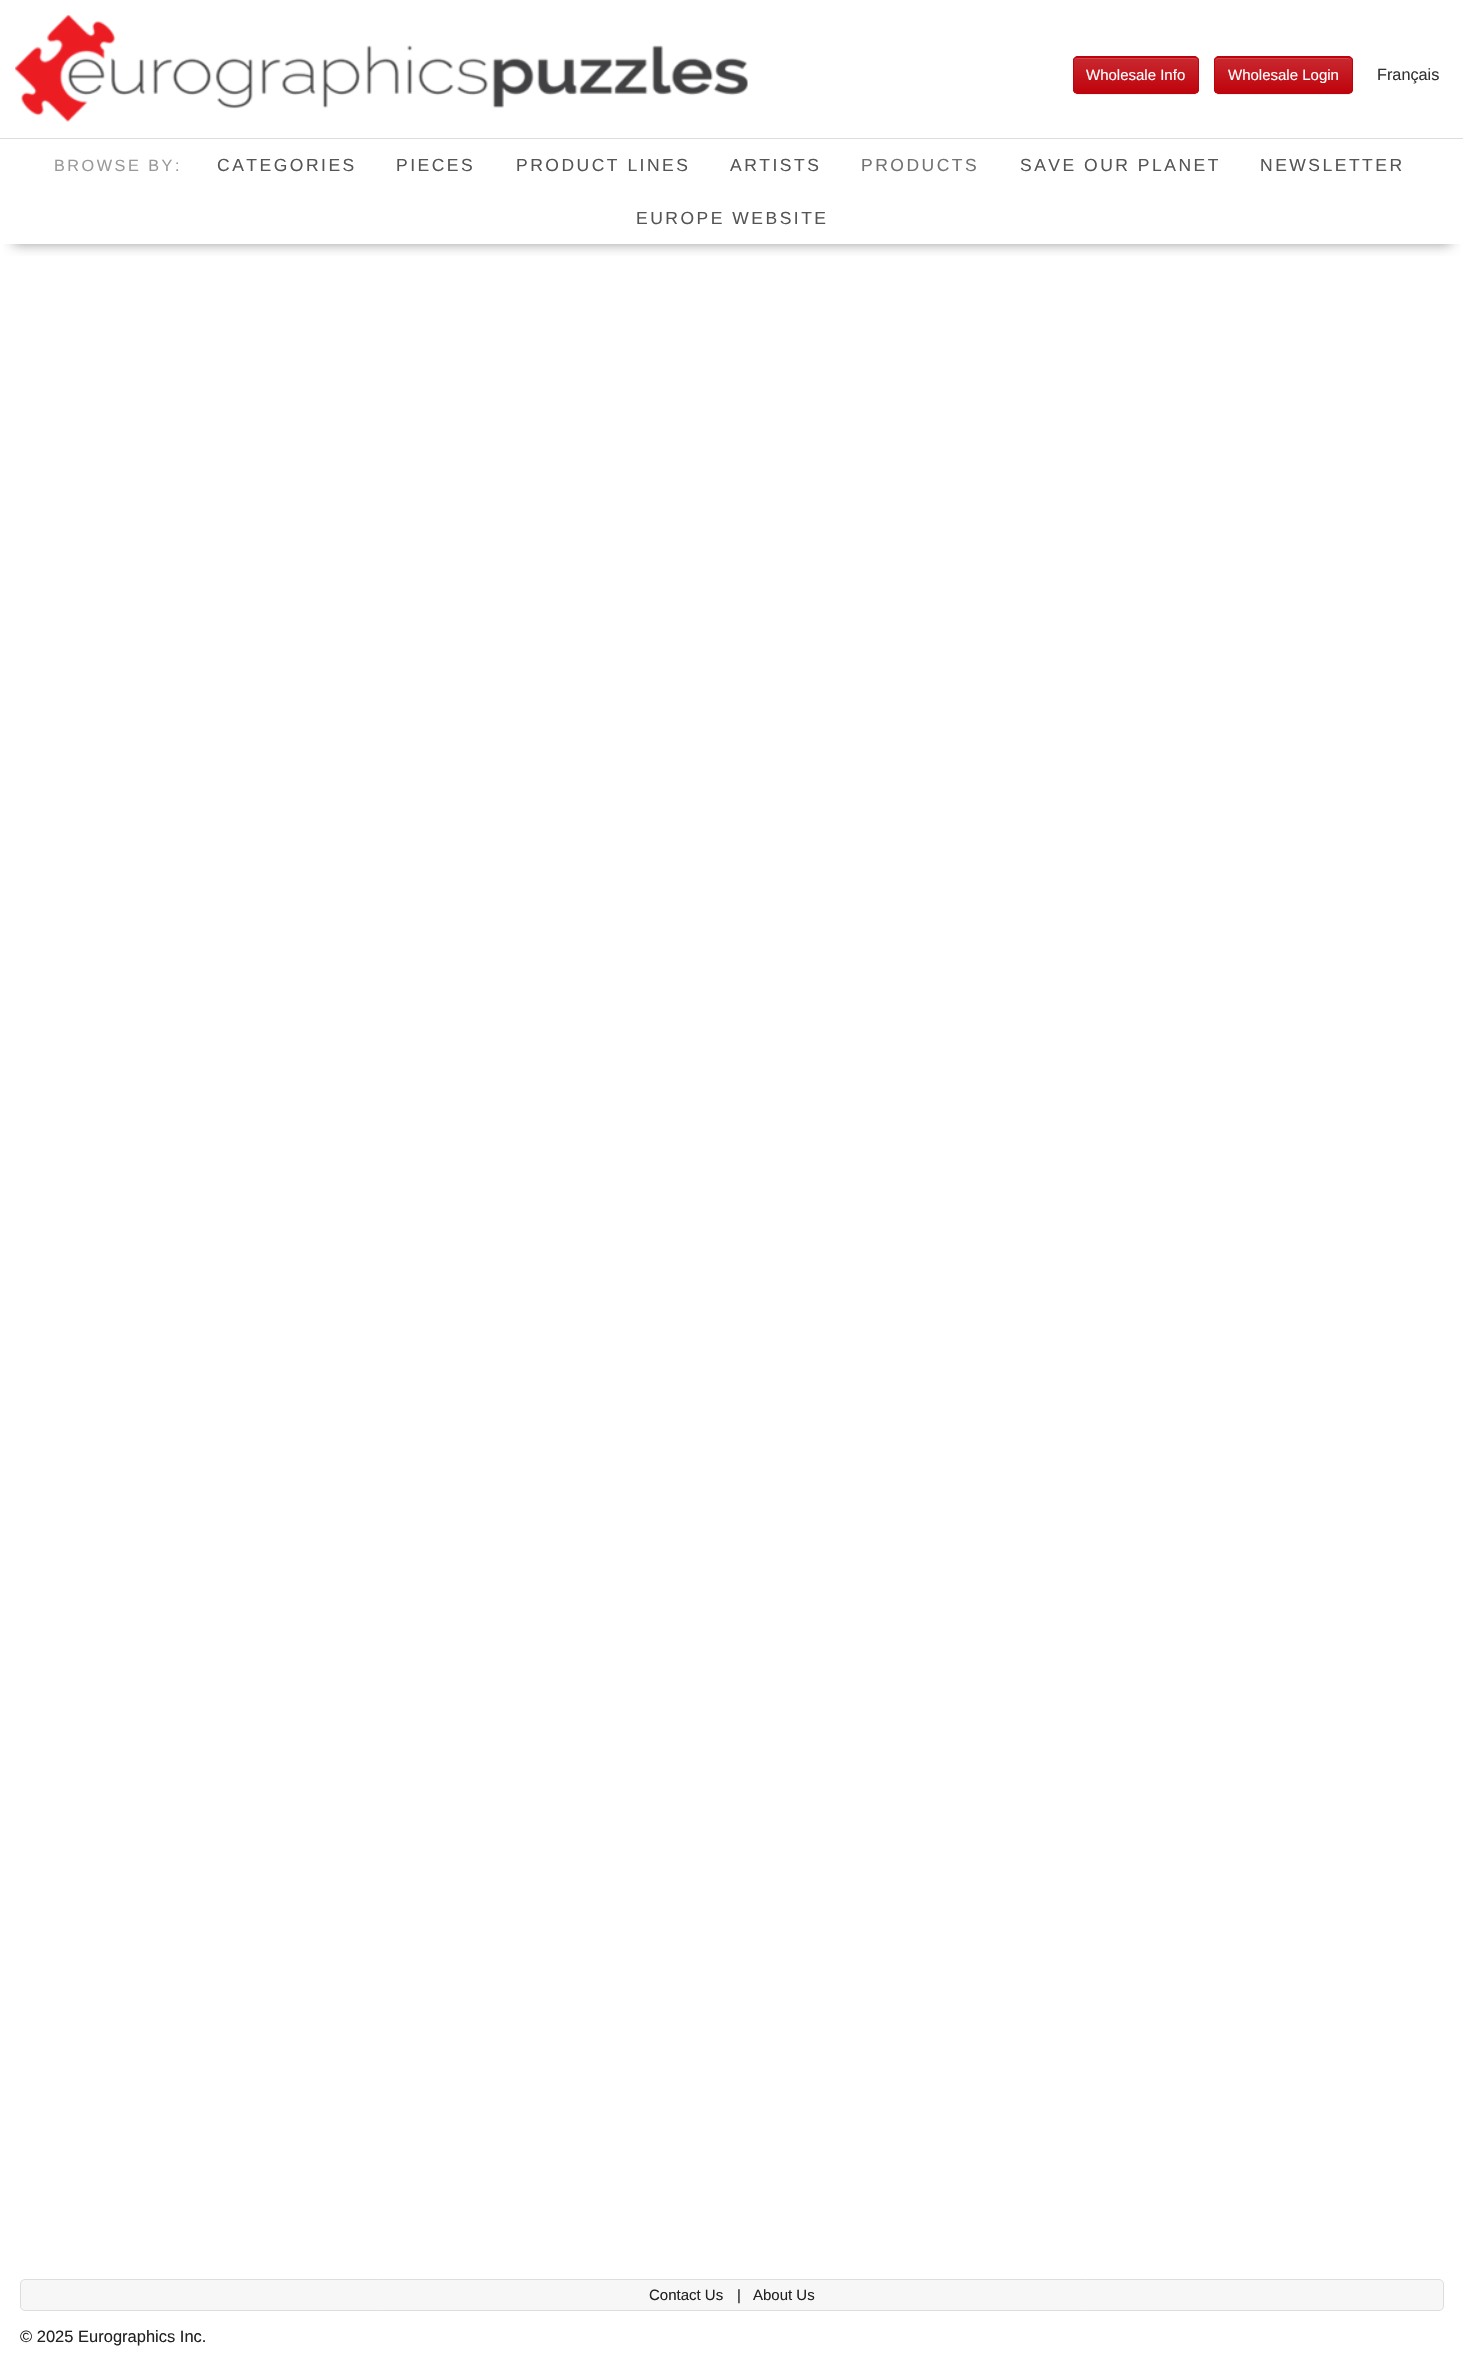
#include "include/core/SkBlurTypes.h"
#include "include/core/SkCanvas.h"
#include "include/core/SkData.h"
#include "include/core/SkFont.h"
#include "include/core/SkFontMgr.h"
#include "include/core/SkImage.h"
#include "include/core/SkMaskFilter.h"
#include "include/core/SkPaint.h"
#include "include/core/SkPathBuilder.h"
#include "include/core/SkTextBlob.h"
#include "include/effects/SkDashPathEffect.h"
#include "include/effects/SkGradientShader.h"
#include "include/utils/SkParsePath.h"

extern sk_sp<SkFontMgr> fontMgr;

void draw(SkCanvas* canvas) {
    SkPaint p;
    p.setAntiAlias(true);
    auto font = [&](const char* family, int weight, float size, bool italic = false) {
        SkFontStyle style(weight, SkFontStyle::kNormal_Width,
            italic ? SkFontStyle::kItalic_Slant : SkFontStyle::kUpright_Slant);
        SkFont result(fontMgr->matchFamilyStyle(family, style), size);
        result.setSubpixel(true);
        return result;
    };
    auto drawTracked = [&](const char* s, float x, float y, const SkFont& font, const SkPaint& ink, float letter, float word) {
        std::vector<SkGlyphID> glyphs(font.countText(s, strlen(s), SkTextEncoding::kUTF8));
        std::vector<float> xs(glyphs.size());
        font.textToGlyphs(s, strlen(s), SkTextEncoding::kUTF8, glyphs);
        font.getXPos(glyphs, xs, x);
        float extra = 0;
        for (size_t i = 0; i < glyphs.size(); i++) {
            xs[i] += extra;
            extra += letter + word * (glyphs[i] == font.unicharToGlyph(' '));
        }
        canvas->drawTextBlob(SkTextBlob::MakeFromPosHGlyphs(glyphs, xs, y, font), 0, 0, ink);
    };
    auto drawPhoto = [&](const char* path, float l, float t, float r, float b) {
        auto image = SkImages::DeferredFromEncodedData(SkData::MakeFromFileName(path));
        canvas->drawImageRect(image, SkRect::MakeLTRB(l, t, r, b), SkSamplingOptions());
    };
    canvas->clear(0xFFFFFFFF);
    canvas->save();
    canvas->clipRect(SkRect::MakeLTRB(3, 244, 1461, 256));
    p.setColor(0xFF999999);
    p.setMaskFilter(SkMaskFilter::MakeBlur(kNormal_SkBlurStyle, 6));
    canvas->drawRect(SkRect::MakeLTRB(13, 25, 1451, 244), p);
    p.setMaskFilter(nullptr);
    canvas->restore();
    p.setColor(0xFFDDDDDD);
    canvas->drawRect(SkRect::MakeLTRB(0, 138, 1463, 139), p);
    drawPhoto("media/1.png", 15, 14, 748, 122);
    p.setColor(0x12222222);
    p.setMaskFilter(SkMaskFilter::MakeBlur(kNormal_SkBlurStyle, 0.5f));
    canvas->drawRoundRect(SkRect::MakeLTRB(1073, 58, 1199, 95), 5, 5, p);
    p.setMaskFilter(nullptr);
    p.setColor(0xFFBF030C);
    canvas->drawRoundRect(SkRect::MakeLTRB(1073, 56, 1199, 94), 5, 5, p);
    canvas->save();
    canvas->clipPath(SkPathBuilder().moveTo(1078, 56).lineTo(1194, 56).cubicTo(1197, 56, 1199, 58, 1199, 61).lineTo(1199, 89).cubicTo(1199, 92, 1197, 94, 1194, 94).lineTo(1078, 94).cubicTo(1075, 94, 1073, 92, 1073, 89).lineTo(1073, 61).cubicTo(1073, 58, 1075, 56, 1078, 56).close().detach(), true);
    {
        const SkColor colors[] = {0xFFC92930, 0xFFBF030C};
        const float stops[] = {0, 1};
        const SkPoint ends[] = {{1136, 57}, {1136, 93}};
        p.setShader(SkGradientShader::MakeLinear(ends, colors, stops, 2, SkTileMode::kClamp));
        p.setAlpha(255);
    }
    canvas->drawRect(SkRect::MakeLTRB(1073, 58, 1199, 93), p);
    canvas->restore();
    p.setShader(nullptr);
    p.setColor(0xFFD1474E);
    canvas->drawPath(SkPathBuilder().moveTo(1078, 59).lineTo(1194, 59).cubicTo(1196, 59, 1198, 60, 1198, 62).cubicTo(1198, 60, 1196, 58, 1194, 58).lineTo(1078, 58).cubicTo(1076, 58, 1075, 59, 1074, 60).cubicTo(1075, 59, 1076, 59, 1078, 59).close().detach(), p);
    p.setStyle(SkPaint::kStroke_Style);
    p.setStrokeWidth(1);
    p.setColor(0xFFBF030C);
    canvas->drawRoundRect(SkRect::MakeLTRB(1073.5f, 56.5f, 1198.5f, 93.5f), 4.5f, 4.5f, p);
    auto font1 = font("Liberation Sans", 400, 15);
    p.setStyle(SkPaint::kFill_Style);
    p.setColor(0xFFFFFFFF);
    canvas->drawString("Wholesale Info", 1086, 80, font1, p);
    p.setColor(0x12222222);
    p.setMaskFilter(SkMaskFilter::MakeBlur(kNormal_SkBlurStyle, 0.5f));
    canvas->drawRoundRect(SkRect::MakeLTRB(1214, 58, 1353, 95), 5, 5, p);
    p.setMaskFilter(nullptr);
    p.setColor(0xFFBF030C);
    canvas->drawRoundRect(SkRect::MakeLTRB(1214, 56, 1353, 94), 5, 5, p);
    canvas->save();
    canvas->clipPath(SkPathBuilder().moveTo(1219, 56).lineTo(1348, 56).cubicTo(1351, 56, 1353, 58, 1353, 61).lineTo(1353, 89).cubicTo(1353, 92, 1351, 94, 1348, 94).lineTo(1219, 94).cubicTo(1216, 94, 1214, 92, 1214, 89).lineTo(1214, 61).cubicTo(1214, 58, 1216, 56, 1219, 56).close().detach(), true);
    {
        const SkColor colors[] = {0xFFC92930, 0xFFBF030C};
        const float stops[] = {0, 1};
        const SkPoint ends[] = {{1283, 57}, {1283, 93}};
        p.setShader(SkGradientShader::MakeLinear(ends, colors, stops, 2, SkTileMode::kClamp));
        p.setAlpha(255);
    }
    canvas->drawRect(SkRect::MakeLTRB(1214, 58, 1353, 93), p);
    canvas->restore();
    p.setShader(nullptr);
    p.setColor(0xFFD1474E);
    canvas->drawPath(SkPathBuilder().moveTo(1219, 59).lineTo(1348, 59).lineTo(1350, 60).cubicTo(1350, 59, 1348, 58, 1347, 58).lineTo(1219, 58).cubicTo(1217, 58, 1215, 60, 1215, 62).cubicTo(1215, 60, 1217, 59, 1219, 59).close().detach(), p);
    p.setStyle(SkPaint::kStroke_Style);
    p.setColor(0xFFBF030C);
    canvas->drawRoundRect(SkRect::MakeLTRB(1214.5f, 56.5f, 1352.5f, 93.5f), 4.5f, 4.5f, p);
    p.setStyle(SkPaint::kFill_Style);
    p.setColor(0xFFFFFFFF);
    canvas->drawString("Wholesale Login", 1228, 80, font1, p);
    auto font2 = font("Liberation Sans", 400, 16.25f);
    p.setColor(0xFF333333);
    canvas->drawString("Français", 1377, 80, font2, p);
    p.setColor(0xFFFFFFFF);
    canvas->drawRect(SkRect::MakeLTRB(8, 243, 1456, 244), p);
    p.setColor(0xFF999999);
    drawTracked("BROWSE BY:", 54, 171, font2, p, 2.5f, 0);
    auto font3 = font("Liberation Sans", 400, 17.5f);
    p.setColor(0xFF555555);
    {
        const struct { const char* s; float x, y; } items[] = {
            {"CATEGORIES", 217, 171},
            {"PIECES", 396, 171},
            {"PRODUCT LINES", 516, 171},
            {"ARTISTS", 730, 171},
        };
        for (auto [s, x, y] : items) {
            drawTracked(s, x, y, font3, p, 2.5f, 0);
        }
    }
    p.setColor(0xFF737373);
    drawTracked("PRODUCTS", 861, 171, font3, p, 2.5f, 0);
    p.setColor(0xFF555555);
    {
        const struct { const char* s; float x, y; } items[] = {
            {"SAVE OUR PLANET", 1020, 171},
            {"NEWSLETTER", 1260, 171},
            {"EUROPE WEBSITE", 636, 224},
        };
        for (auto [s, x, y] : items) {
            drawTracked(s, x, y, font3, p, 2.5f, 0);
        }
    }
    p.setColor(0xFFF7F7F7);
    canvas->drawRoundRect(SkRect::MakeLTRB(20.5f, 2279.5f, 1443.5f, 2310.5f), 4.5f, 4.5f, p);
    p.setStyle(SkPaint::kStroke_Style);
    p.setColor(0xFFDDDDDD);
    canvas->drawRoundRect(SkRect::MakeLTRB(20.5f, 2279.5f, 1443.5f, 2310.5f), 4.5f, 4.5f, p);
    p.setStyle(SkPaint::kFill_Style);
    p.setColor(0xFF222222);
    {
        const struct { const char* s; float x, y; } items[] = {
            {"Contact Us", 649, 2300},
            {"|", 737, 2300},
            {"About Us", 753, 2300},
        };
        for (auto [s, x, y] : items) {
            canvas->drawString(s, x, y, font1, p);
        }
    }
    auto font4 = font("Liberation Sans", 400, 16.5f);
    canvas->drawString("© 2025 Eurographics Inc.", 20, 2342, font4, p);
}
